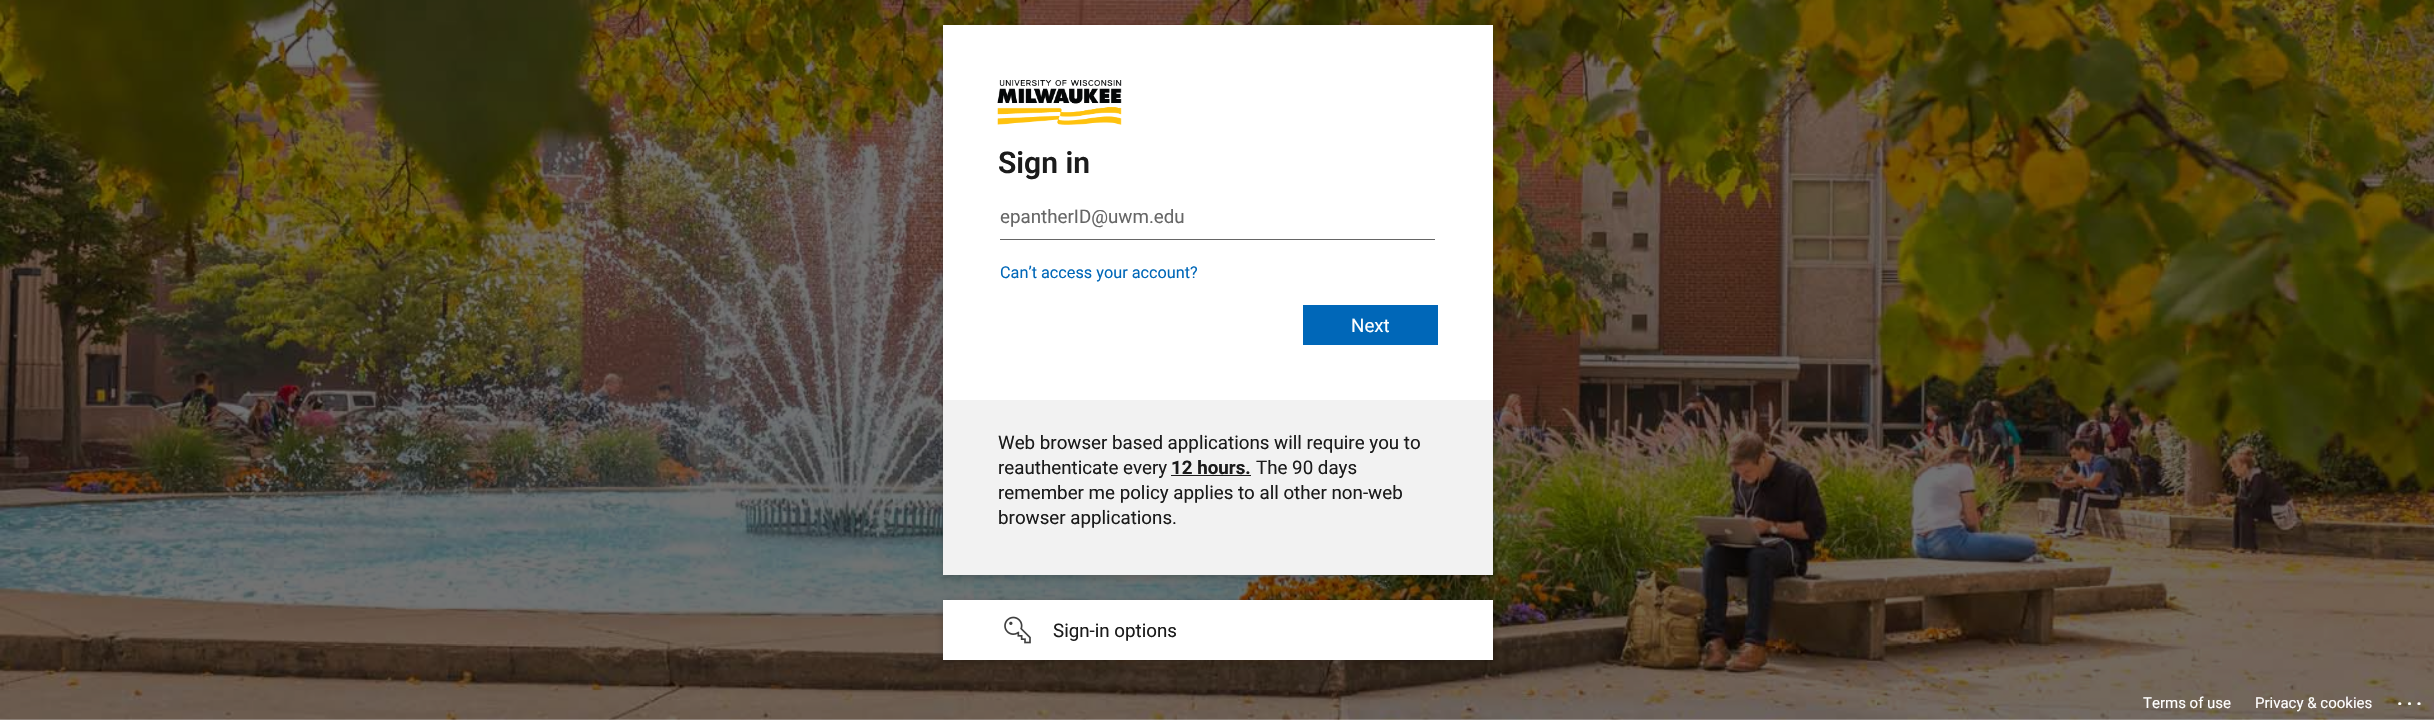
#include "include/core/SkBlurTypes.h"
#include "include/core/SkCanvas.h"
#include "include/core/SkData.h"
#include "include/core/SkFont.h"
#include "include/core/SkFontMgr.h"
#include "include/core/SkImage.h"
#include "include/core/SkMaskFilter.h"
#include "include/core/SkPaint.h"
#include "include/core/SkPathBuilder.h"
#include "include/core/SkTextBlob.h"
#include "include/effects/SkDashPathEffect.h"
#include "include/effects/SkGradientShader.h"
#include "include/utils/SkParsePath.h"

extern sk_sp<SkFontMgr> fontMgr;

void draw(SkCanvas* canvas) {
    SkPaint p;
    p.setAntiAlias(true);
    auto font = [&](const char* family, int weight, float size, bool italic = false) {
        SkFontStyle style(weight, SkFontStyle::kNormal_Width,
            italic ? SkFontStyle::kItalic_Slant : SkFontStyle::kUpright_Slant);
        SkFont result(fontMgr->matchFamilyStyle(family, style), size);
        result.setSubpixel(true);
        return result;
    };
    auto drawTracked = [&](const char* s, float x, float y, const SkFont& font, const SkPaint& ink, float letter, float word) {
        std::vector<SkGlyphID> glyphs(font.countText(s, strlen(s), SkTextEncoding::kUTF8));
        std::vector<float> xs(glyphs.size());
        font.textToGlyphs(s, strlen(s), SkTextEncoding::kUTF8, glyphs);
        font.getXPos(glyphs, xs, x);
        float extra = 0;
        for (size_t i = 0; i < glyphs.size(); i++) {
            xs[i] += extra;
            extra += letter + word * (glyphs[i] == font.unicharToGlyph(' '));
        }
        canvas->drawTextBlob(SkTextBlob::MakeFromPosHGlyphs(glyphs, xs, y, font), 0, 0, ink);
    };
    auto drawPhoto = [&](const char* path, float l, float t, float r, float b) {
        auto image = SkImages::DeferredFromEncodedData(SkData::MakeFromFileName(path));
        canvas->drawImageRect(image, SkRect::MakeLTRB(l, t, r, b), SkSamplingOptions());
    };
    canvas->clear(0xFFFFFFFF);
    drawPhoto("media/1.png", 0, 0, 2434, 720);
    p.setColor(0x33000000);
    p.setMaskFilter(SkMaskFilter::MakeBlur(kNormal_SkBlurStyle, 4));
    canvas->drawRect(SkRect::MakeLTRB(943, 28, 1493, 578), p);
    p.setMaskFilter(nullptr);
    p.setColor(0xFFFFFFFF);
    canvas->drawRect(SkRect::MakeLTRB(943, 25, 1493, 400), p);
    drawPhoto("media/2.png", 997, 80, 1122, 125);
    auto font1 = font("Roboto", 600, 30);
    p.setColor(0xFF1B1B1B);
    canvas->drawString("Sign in", 998, 173, font1, p);
    p.setColor(0xFF666666);
    canvas->drawRect(SkRect::MakeLTRB(1000, 239, 1435, 240), p);
    auto font2 = font("Roboto", 400, 18.75f);
    canvas->drawString("epantherID@uwm.edu", 1000, 223, font2, p);
    auto font3 = font("Roboto", 400, 16.25f);
    p.setColor(0xFF0067B8);
    canvas->drawString("Can’t access your account?", 1000, 278, font3, p);
    canvas->drawRect(SkRect::MakeLTRB(1303, 305, 1438, 345), p);
    p.setColor(0xFFFFFFFF);
    canvas->drawString("Next", 1351, 332, font2, p);
    p.setColor(0xFFF2F2F2);
    canvas->drawRect(SkRect::MakeLTRB(943, 400, 1493, 575), p);
    p.setColor(0xFF1B1B1B);
    canvas->drawString("Web browser based applications will require you to", 998, 449, font2, p);
    canvas->drawString("reauthenticate every", 998, 474, font2, p);
    auto font4 = font("Roboto", 700, 18.75f);
    canvas->drawString("12 hours.", 1171, 474, font4, p);
    canvas->drawRect(SkRect::MakeLTRB(1171, 475, 1251, 476), p);
    {
        const struct { const char* s; float x, y; } items[] = {
            {"The 90 days", 1256, 474},
            {"remember me policy applies to all other non-web", 998, 499},
            {"browser applications.", 998, 524},
        };
        for (auto [s, x, y] : items) {
            canvas->drawString(s, x, y, font2, p);
        }
    }
    p.setColor(0x33000000);
    p.setMaskFilter(SkMaskFilter::MakeBlur(kNormal_SkBlurStyle, 4));
    canvas->drawRect(SkRect::MakeLTRB(943, 603, 1493, 663), p);
    p.setMaskFilter(nullptr);
    p.setColor(0xFFFFFFFF);
    canvas->drawRect(SkRect::MakeLTRB(943, 600, 1493, 660), p);
    drawPhoto("media/3.png", 1004, 616, 1031, 644);
    p.setColor(0xFF1B1B1B);
    canvas->drawString("Sign-in options", 1053, 637, font2, p);
    auto font5 = font("Roboto", 400, 15);
    p.setColor(0xFFFFFFFF);
    canvas->drawString("Terms of use", 2143, 708, font5, p);
    canvas->drawString("Privacy & cookies", 2255, 708, font5, p);
    auto font6 = font("Roboto", 600, 20);
    drawTracked("...", 2397, 705, font6, p, 4, 0);
}
